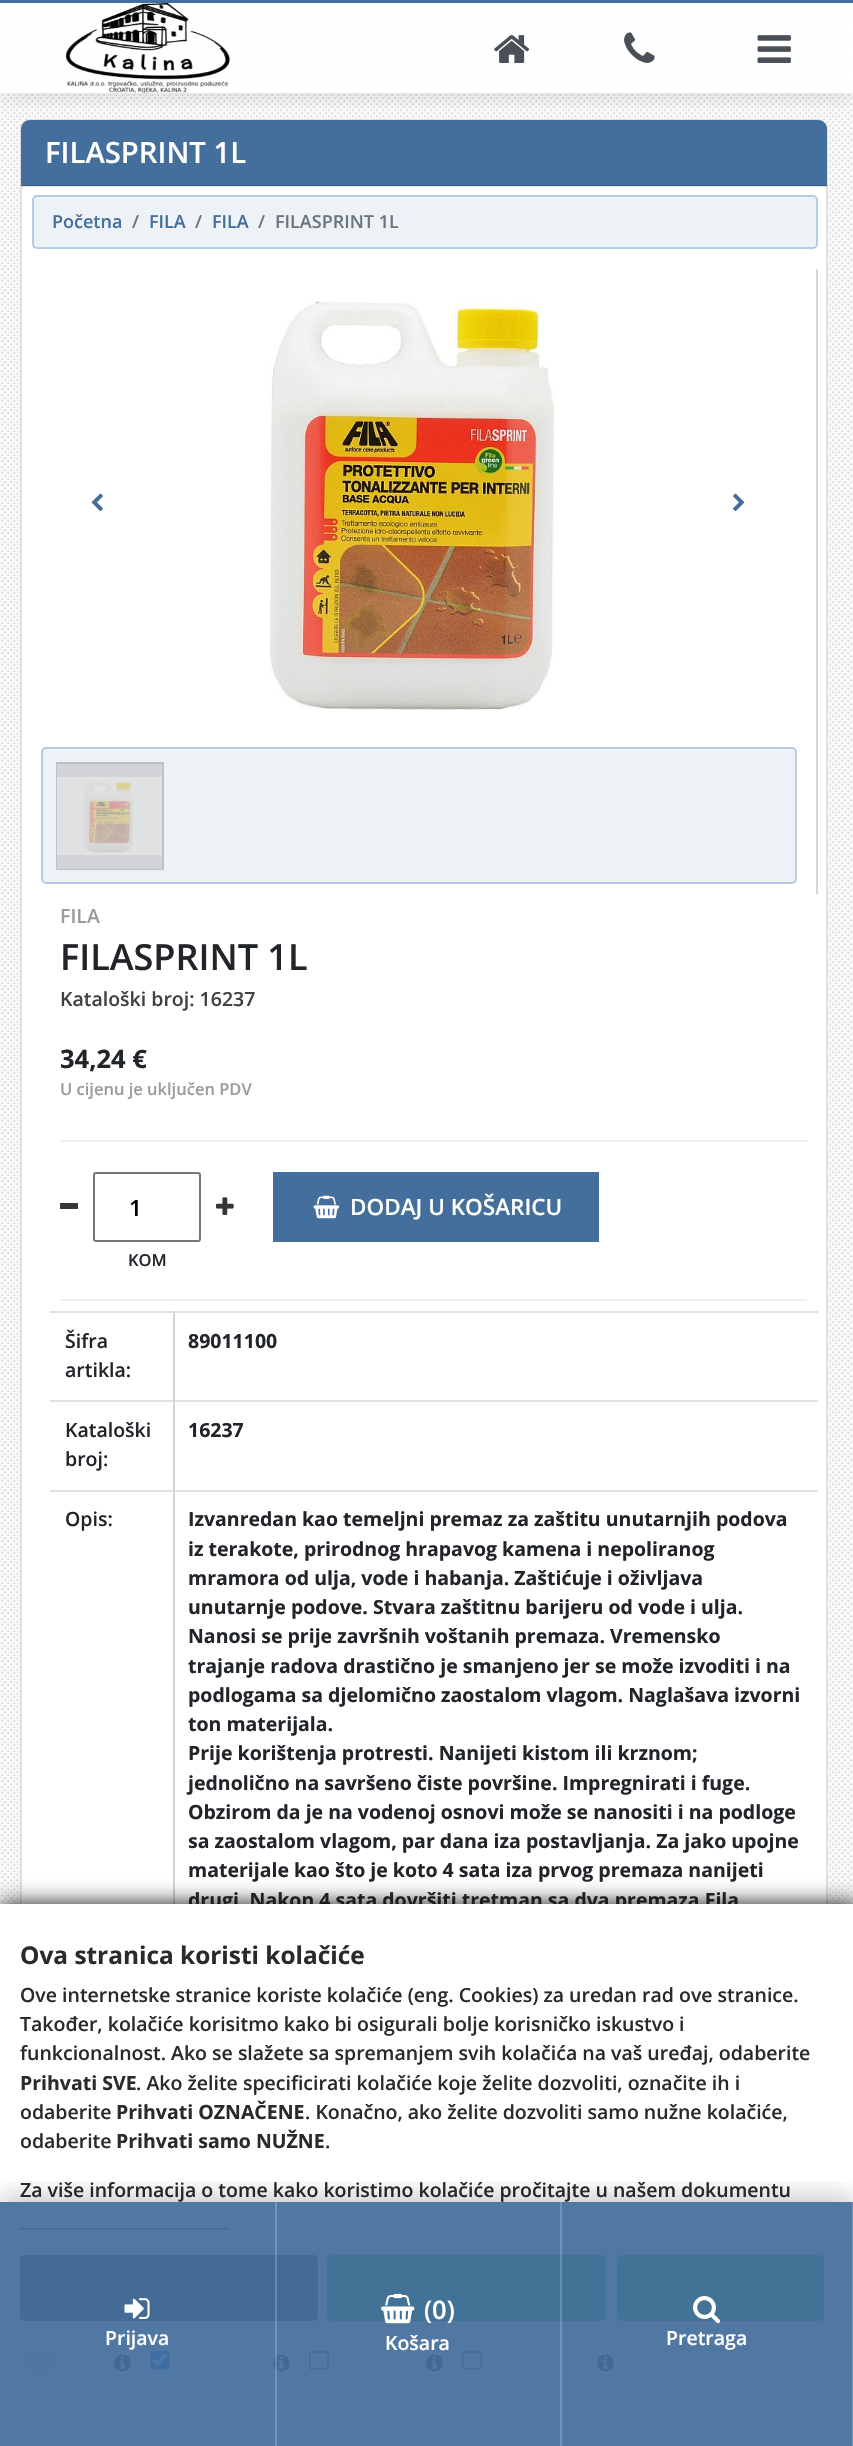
#include "include/core/SkBlurTypes.h"
#include "include/core/SkCanvas.h"
#include "include/core/SkData.h"
#include "include/core/SkFont.h"
#include "include/core/SkFontMgr.h"
#include "include/core/SkImage.h"
#include "include/core/SkMaskFilter.h"
#include "include/core/SkPaint.h"
#include "include/core/SkPathBuilder.h"
#include "include/core/SkTextBlob.h"
#include "include/effects/SkDashPathEffect.h"
#include "include/effects/SkGradientShader.h"
#include "include/utils/SkParsePath.h"

extern sk_sp<SkFontMgr> fontMgr;

void draw(SkCanvas* canvas) {
    SkPaint p;
    p.setAntiAlias(true);
    auto font = [&](const char* family, int weight, float size, bool italic = false) {
        SkFontStyle style(weight, SkFontStyle::kNormal_Width,
            italic ? SkFontStyle::kItalic_Slant : SkFontStyle::kUpright_Slant);
        SkFont result(fontMgr->matchFamilyStyle(family, style), size);
        result.setSubpixel(true);
        return result;
    };
    auto drawPhoto = [&](const char* path, float l, float t, float r, float b) {
        auto image = SkImages::DeferredFromEncodedData(SkData::MakeFromFileName(path));
        canvas->drawImageRect(image, SkRect::MakeLTRB(l, t, r, b), SkSamplingOptions());
    };
    canvas->clear(0xFFF8F8F8);
    drawPhoto("media/1.png", 1, 4, 852, 1904);
    p.setColor(0xFFFFFFFF);
    canvas->drawRoundRect(SkRect::MakeLTRB(20, 119, 828, 2136), 11, 11, p);
    p.setStyle(SkPaint::kStroke_Style);
    p.setStrokeWidth(2);
    p.setColor(0x1F000000);
    canvas->drawRoundRect(SkRect::MakeLTRB(21, 120, 827, 2135), 10, 10, p);
    p.setStyle(SkPaint::kFill_Style);
    p.setColor(0xFF446E9B);
    canvas->drawPath(SkPathBuilder().moveTo(30, 120).lineTo(818, 120).cubicTo(823, 120, 827, 124, 827, 129).lineTo(827, 186).lineTo(21, 186).lineTo(21, 129).cubicTo(21, 124, 25, 120, 30, 120).close().detach(), p);
    canvas->save();
    canvas->clipRect(SkRect::MakeLTRB(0, 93, 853, 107));
    p.setColor(0x1A000000);
    p.setMaskFilter(SkMaskFilter::MakeBlur(kNormal_SkBlurStyle, 11));
    canvas->drawRect(SkRect::MakeLTRB(0, 2, 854, 98), p);
    p.setMaskFilter(nullptr);
    canvas->restore();
    p.setColor(0xEDFFFFFF);
    canvas->drawRect(SkRect::MakeLTRB(0, 3, 853, 93), p);
    p.setColor(0xFF446E9B);
    canvas->drawRect(SkRect::MakeLTRB(0, 0, 853, 3), p);
    drawPhoto("media/2.png", 65, 3, 230, 93);
    drawPhoto("media/3.png", 494, 35, 530, 63);
    drawPhoto("media/4.png", 624, 32, 655, 63);
    drawPhoto("media/5.png", 757, 35, 791, 63);
    p.setColor(0x1F000000);
    canvas->drawRect(SkRect::MakeLTRB(21, 185, 827, 187), p);
    auto font1 = font("Open Sans", 600, 29.25f);
    p.setColor(0xFFFFFFFF);
    canvas->drawString("FILASPRINT 1L", 45, 163, font1, p);
    p.setColor(0xFFEDF2F7);
    canvas->drawRoundRect(SkRect::MakeLTRB(33, 196, 817, 248), 4, 4, p);
    p.setStyle(SkPaint::kStroke_Style);
    p.setColor(0xFFB8CBE0);
    canvas->drawRoundRect(SkRect::MakeLTRB(33, 196, 817, 248), 4, 4, p);
    auto font2 = font("Open Sans", 600, 18);
    p.setStyle(SkPaint::kFill_Style);
    p.setColor(0xFF446E9B);
    canvas->drawString("Početna", 52, 228, font2, p);
    p.setColor(0xFF6C757D);
    canvas->drawString("/", 132, 228, font2, p);
    p.setColor(0xFF446E9B);
    canvas->drawString("FILA", 149, 228, font2, p);
    p.setColor(0xFF6C757D);
    canvas->drawString("/", 195, 228, font2, p);
    p.setColor(0xFF446E9B);
    canvas->drawString("FILA", 212, 228, font2, p);
    p.setColor(0xFF6C757D);
    canvas->drawString("/", 258, 228, font2, p);
    canvas->drawString("FILASPRINT 1L", 275, 228, font2, p);
    p.setColor(0xFFD8D8D8);
    canvas->drawRect(SkRect::MakeLTRB(816, 269, 818, 894), p);
    drawPhoto("media/6.png", 91, 493, 103, 512);
    drawPhoto("media/7.png", 269, 301, 555, 710);
    drawPhoto("media/8.png", 733, 493, 745, 512);
    p.setColor(0xFFEDF2F7);
    canvas->drawRoundRect(SkRect::MakeLTRB(42, 748, 796, 883), 4, 4, p);
    p.setStyle(SkPaint::kStroke_Style);
    p.setColor(0xFFB8CBE0);
    canvas->drawRoundRect(SkRect::MakeLTRB(42, 748, 796, 883), 4, 4, p);
    p.setStyle(SkPaint::kFill_Style);
    p.setColor(0xFFBEC2C6);
    canvas->drawRect(SkRect::MakeLTRB(56, 762, 164, 870), p);
    p.setColor(0xFFD2D4D7);
    canvas->drawRect(SkRect::MakeLTRB(57, 764, 162, 869), p);
    drawPhoto("media/9.png", 57, 777, 162, 855);
    auto font3 = font("Open Sans", 600, 19.5f);
    p.setColor(0xFF9B9B9B);
    canvas->drawString("FILA", 60, 923, font3, p);
    auto font4 = font("Open Sans", 600, 36);
    p.setColor(0xFF212529);
    canvas->drawString("FILASPRINT 1L", 60, 970, font4, p);
    p.setColor(0xFF404040);
    canvas->drawString("Kataloški broj: 16237", 60, 1006, font3, p);
    p.setColor(0xFFEEEEEE);
    canvas->drawRect(SkRect::MakeLTRB(60, 1140, 807, 1142), p);
    auto font5 = font("Open Sans", 700, 25.5f);
    p.setColor(0xFF212529);
    canvas->drawString("34,24 €", 60, 1068, font5, p);
    auto font6 = font("Open Sans", 600, 16.5f);
    p.setColor(0xFF9B9B9B);
    canvas->drawString("U cijenu je uključen PDV", 60, 1095, font6, p);
    p.setColor(0xFFEEEEEE);
    canvas->drawRect(SkRect::MakeLTRB(60, 1299, 807, 1301), p);
    p.setColor(0xFF353535);
    canvas->drawRect(SkRect::MakeLTRB(60, 1203, 78, 1209), p);
    p.setStyle(SkPaint::kStroke_Style);
    p.setColor(0xFF767676);
    canvas->drawRoundRect(SkRect::MakeLTRB(94, 1173, 200, 1241), 2, 2, p);
    auto font7 = font("Open Sans", 600, 22.5f);
    p.setStyle(SkPaint::kFill_Style);
    p.setColor(0xFF000000);
    canvas->drawString("1", 129, 1216, font7, p);
    drawPhoto("media/10.png", 216, 1197, 234, 1215);
    p.setColor(0xFF212529);
    canvas->drawString("KOM", 128, 1266, font6, p);
    p.setColor(0xFF446E9B);
    canvas->drawRect(SkRect::MakeLTRB(273, 1172, 599, 1242), p);
    drawPhoto("media/11.png", 313, 1195, 340, 1219);
    p.setColor(0xFFFFFFFF);
    canvas->drawString("DODAJ U KOŠARICU", 350, 1215, font7, p);
    {
        const struct { float l, t, r, b; SkColor color; } items[] = {
            {173, 1311, 818, 1313, 0xFFDEE2E6},
            {173, 1400, 818, 1402, 0xFFDEE2E6},
            {173, 1490, 818, 1492, 0xFFDEE2E6},
            {173, 1490, 175, 1904, 0xFFCED4DA},
            {50, 1490, 174, 1492, 0xFFDEE2E6},
            {173, 1400, 175, 1491, 0xFFCED4DA},
            {50, 1400, 174, 1402, 0xFFDEE2E6},
            {173, 1311, 175, 1401, 0xFFCED4DA},
            {50, 1311, 174, 1313, 0xFFDEE2E6},
        };
        for (auto [l, t, r, b, color] : items) {
            p.setColor(color);
            canvas->drawRect(SkRect::MakeLTRB(l, t, r, b), p);
        }
    }
    p.setColor(0xFF212529);
    canvas->drawString("Šifra", 65, 1348, font3, p);
    canvas->drawString("artikla:", 65, 1377, font3, p);
    auto font8 = font("Open Sans", 700, 19.5f);
    canvas->drawString("89011100", 188, 1348, font8, p);
    canvas->drawString("Kataloški", 65, 1437, font3, p);
    canvas->drawString("broj:", 65, 1466, font3, p);
    canvas->drawString("16237", 188, 1437, font8, p);
    canvas->drawString("Opis:", 65, 1526, font3, p);
    {
        const struct { const char* s; float x, y; } items[] = {
            {"Izvanredan kao temeljni premaz za zaštitu unutarnjih podova", 188, 1526},
            {"iz terakote, prirodnog hrapavog kamena i nepoliranog", 188, 1556},
            {"mramora od ulja, vode i habanja. Zaštićuje i oživljava", 188, 1585},
            {"unutarnje podove. Stvara zaštitnu barijeru od vode i ulja.", 188, 1614},
            {"Nanosi se prije završnih voštanih premaza. Vremensko", 188, 1643},
            {"trajanje radova drastično je smanjeno jer se može izvoditi i na", 188, 1673},
            {"podlogama sa djelomično zaostalom vlagom. Naglašava izvorni", 188, 1702},
            {"ton materijala.", 188, 1731},
            {"Prije korištenja protresti. Nanijeti kistom ili krznom;", 188, 1760},
            {"jednolično na savršeno čiste površine. Impregnirati i fuge.", 188, 1790},
            {"Obzirom da je na vodenoj osnovi može se nanositi i na podloge", 188, 1819},
            {"sa zaostalom vlagom, par dana iza postavljanja. Za jako upojne", 188, 1848},
            {"materijale kao što je koto 4 sata iza prvog premaza nanijeti", 188, 1877},
            {"drugi. Nakon 4 sata dovršiti tretman sa dva premaza Fila", 188, 1907},
        };
        for (auto [s, x, y] : items) {
            canvas->drawString(s, x, y, font8, p);
        }
    }
    p.setColor(0xFF121212);
    p.setMaskFilter(SkMaskFilter::MakeBlur(kNormal_SkBlurStyle, 10.5f));
    canvas->drawRect(SkRect::MakeLTRB(0, 1904, 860, 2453), p);
    p.setMaskFilter(nullptr);
    p.setColor(0xFFFFFFFF);
    canvas->drawRect(SkRect::MakeLTRB(0, 1904, 853, 2446), p);
    auto font9 = font("Open Sans", 700, 24.4f);
    p.setColor(0xFF2A2A2A);
    canvas->drawString("Ova stranica koristi kolačiće", 20, 1964, font9, p);
    {
        const struct { const char* s; float x, y; } items[] = {
            {"Ove internetske stranice koriste kolačiće (eng. Cookies) za uredan rad ove stranice.", 20, 2002},
            {"Također, kolačiće korisitmo kako bi osigurali bolje korisničko iskustvo i", 20, 2031},
            {"funkcionalnost. Ako se slažete sa spremanjem svih kolačića na vaš uređaj, odaberite", 20, 2060},
        };
        for (auto [s, x, y] : items) {
            canvas->drawString(s, x, y, font3, p);
        }
    }
    canvas->drawString("Prihvati SVE", 20, 2090, font8, p);
    canvas->drawString(". Ako želite specificirati kolačiće koje želite dozvoliti, označite ih i", 136, 2090, font3, p);
    canvas->drawString("odaberite", 20, 2119, font3, p);
    canvas->drawString("Prihvati OZNAČENE", 116, 2119, font8, p);
    canvas->drawString(". Konačno, ako želite dozvoliti samo nužne kolačiće,", 305, 2119, font3, p);
    canvas->drawString("odaberite", 20, 2148, font3, p);
    canvas->drawString("Prihvati samo NUŽNE", 116, 2148, font8, p);
    canvas->drawString(".", 325, 2148, font3, p);
    canvas->drawString("Za više informacija o tome kako koristimo kolačiće pročitajte u našem dokumentu", 20, 2197, font3, p);
    p.setColor(0xFF446E9B);
    canvas->drawRect(SkRect::MakeLTRB(20, 2228, 228, 2230), p);
    p.setColor(0xFF343A40);
    canvas->drawRoundRect(SkRect::MakeLTRB(21, 2256, 317, 2320), 4, 4, p);
    p.setStyle(SkPaint::kStroke_Style);
    canvas->drawRoundRect(SkRect::MakeLTRB(21, 2256, 317, 2320), 4, 4, p);
    p.setStyle(SkPaint::kFill_Style);
    p.setColor(0xFF28A745);
    canvas->drawRoundRect(SkRect::MakeLTRB(328, 2256, 605, 2320), 4, 4, p);
    p.setStyle(SkPaint::kStroke_Style);
    canvas->drawRoundRect(SkRect::MakeLTRB(328, 2256, 605, 2320), 4, 4, p);
    p.setStyle(SkPaint::kFill_Style);
    canvas->drawRoundRect(SkRect::MakeLTRB(618, 2256, 823, 2320), 4, 4, p);
    p.setStyle(SkPaint::kStroke_Style);
    canvas->drawRoundRect(SkRect::MakeLTRB(618, 2256, 823, 2320), 4, 4, p);
    p.setStyle(SkPaint::kFill_Style);
    p.setColor(0xFFD6D6D6);
    canvas->drawRoundRect(SkRect::MakeLTRB(30, 2351, 50, 2370), 3, 3, p);
    p.setStyle(SkPaint::kStroke_Style);
    p.setStrokeWidth(3.1f);
    p.setColor(0xFFFFFFFF);
    canvas->drawPath(SkPathBuilder().moveTo(34, 2360).lineTo(38, 2364).lineTo(45.5f, 2354.5f).detach(), p);
    drawPhoto("media/12.png", 114, 2354, 131, 2372);
    p.setStyle(SkPaint::kFill_Style);
    p.setColor(0xFF0075FF);
    canvas->drawRoundRect(SkRect::MakeLTRB(150, 2351, 170, 2370), 3, 3, p);
    p.setStyle(SkPaint::kStroke_Style);
    p.setColor(0xFFFFFFFF);
    canvas->drawPath(SkPathBuilder().moveTo(154, 2360).lineTo(158, 2364).lineTo(165.5f, 2354.5f).detach(), p);
    drawPhoto("media/12.png", 273, 2354, 290, 2372);
    p.setStrokeWidth(2);
    p.setColor(0xFF767676);
    canvas->drawRoundRect(SkRect::MakeLTRB(310, 2352, 328, 2369), 2, 2, p);
    drawPhoto("media/12.png", 426, 2354, 443, 2372);
    canvas->drawRoundRect(SkRect::MakeLTRB(463, 2352, 481, 2369), 2, 2, p);
    drawPhoto("media/12.png", 597, 2354, 614, 2372);
    canvas->save();
    canvas->clipRect(SkRect::MakeLTRB(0, 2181, 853, 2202));
    p.setStyle(SkPaint::kFill_Style);
    p.setColor(0x33000000);
    p.setMaskFilter(SkMaskFilter::MakeBlur(kNormal_SkBlurStyle, 11));
    canvas->drawRect(SkRect::MakeLTRB(0, 2195, 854, 2439), p);
    p.setMaskFilter(nullptr);
    canvas->restore();
    p.setColor(0xED446E9B);
    canvas->drawRect(SkRect::MakeLTRB(0, 2202, 852, 2446), p);
    p.setColor(0x33FFFFFF);
    canvas->drawRect(SkRect::MakeLTRB(275, 2202, 277, 2446), p);
    drawPhoto("media/13.png", 124, 2298, 150, 2319);
    p.setColor(0xFFFFFFFF);
    canvas->drawString("Prijava", 105, 2345, font3, p);
    p.setColor(0x33FFFFFF);
    canvas->drawRect(SkRect::MakeLTRB(560, 2202, 562, 2446), p);
    drawPhoto("media/14.png", 381, 2293, 415, 2324);
    auto font10 = font("Open Sans", 600, 25.5f);
    p.setColor(0xFFFFFFFF);
    canvas->drawString("(0)", 424, 2319, font10, p);
    canvas->drawString("Košara", 385, 2350, font3, p);
    p.setColor(0xFF7493B5);
    canvas->drawRect(SkRect::MakeLTRB(852, 2202, 853, 2446), p);
    drawPhoto("media/15.png", 693, 2296, 721, 2324);
    p.setColor(0xFFFFFFFF);
    canvas->drawString("Pretraga", 666, 2345, font3, p);
}
